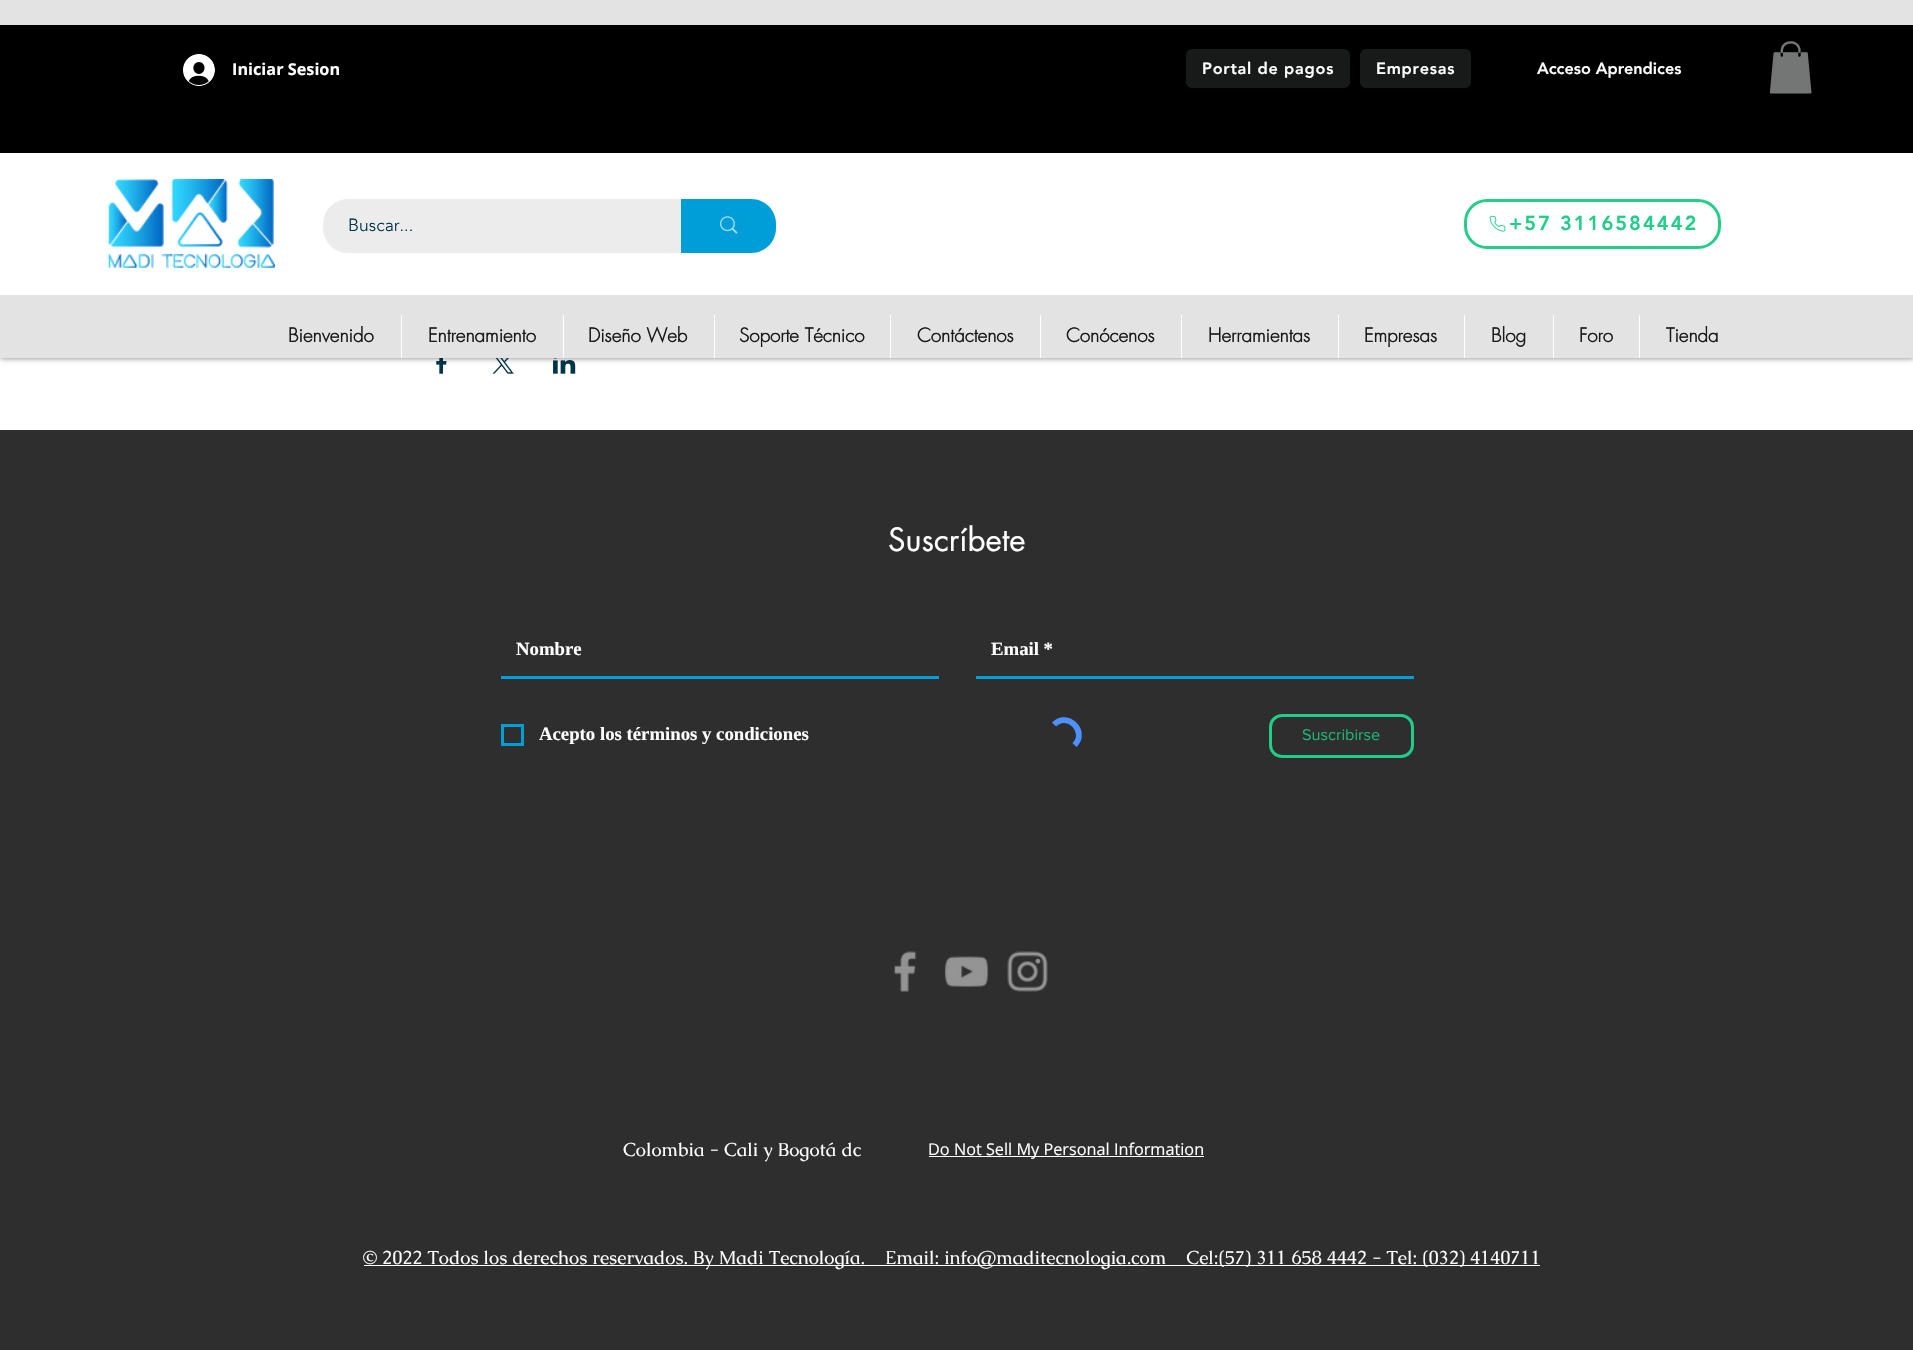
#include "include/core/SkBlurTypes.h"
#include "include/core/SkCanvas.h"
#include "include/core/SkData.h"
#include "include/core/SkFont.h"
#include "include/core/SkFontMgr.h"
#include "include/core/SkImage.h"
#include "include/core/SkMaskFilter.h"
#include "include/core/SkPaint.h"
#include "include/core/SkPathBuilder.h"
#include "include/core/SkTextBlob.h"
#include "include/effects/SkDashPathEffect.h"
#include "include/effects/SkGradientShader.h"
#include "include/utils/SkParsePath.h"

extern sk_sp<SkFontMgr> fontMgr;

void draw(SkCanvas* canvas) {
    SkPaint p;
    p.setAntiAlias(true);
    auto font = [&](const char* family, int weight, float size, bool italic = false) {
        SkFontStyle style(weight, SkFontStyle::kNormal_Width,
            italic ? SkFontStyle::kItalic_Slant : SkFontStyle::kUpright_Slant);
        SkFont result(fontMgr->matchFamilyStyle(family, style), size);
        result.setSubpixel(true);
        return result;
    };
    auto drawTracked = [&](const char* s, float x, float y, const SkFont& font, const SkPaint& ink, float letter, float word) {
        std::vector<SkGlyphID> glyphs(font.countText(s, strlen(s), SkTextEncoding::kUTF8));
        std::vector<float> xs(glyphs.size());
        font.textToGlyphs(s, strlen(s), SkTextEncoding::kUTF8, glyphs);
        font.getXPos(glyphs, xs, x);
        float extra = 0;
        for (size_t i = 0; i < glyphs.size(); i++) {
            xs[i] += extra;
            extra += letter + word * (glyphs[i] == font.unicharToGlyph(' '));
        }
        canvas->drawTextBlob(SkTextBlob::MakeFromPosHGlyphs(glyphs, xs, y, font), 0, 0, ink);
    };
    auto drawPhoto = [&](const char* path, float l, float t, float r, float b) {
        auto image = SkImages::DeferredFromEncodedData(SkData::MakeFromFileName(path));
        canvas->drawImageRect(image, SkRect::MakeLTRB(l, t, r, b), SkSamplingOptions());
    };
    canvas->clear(0xFFFFFFFF);
    drawPhoto("media/6.png", 436, 358, 447, 374);
    drawPhoto("media/7.png", 492, 358, 514, 374);
    drawPhoto("media/8.png", 553, 358, 576, 374);
    p.setColor(0x80000000);
    p.setMaskFilter(SkMaskFilter::MakeBlur(kNormal_SkBlurStyle, 3));
    canvas->drawRect(SkRect::MakeLTRB(0, 0, 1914, 358), p);
    p.setMaskFilter(nullptr);
    p.setColor(0xFFE3E3E3);
    canvas->drawRect(SkRect::MakeLTRB(0, 0, 1913, 358), p);
    p.setColor(0xFF000000);
    canvas->drawRect(SkRect::MakeLTRB(0, 25, 1913, 153), p);
    drawPhoto("media/1.png", 183, 54, 215, 86);
    auto font1 = font("Open Sans", 700, 16.25f);
    p.setColor(0xFFFFFFFF);
    canvas->drawString("Iniciar Sesion", 232, 75, font1, p);
    p.setColor(0xFF181919);
    canvas->drawRoundRect(SkRect::MakeLTRB(1186, 49, 1350, 88), 6, 6, p);
    auto font2 = font("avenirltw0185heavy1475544", 900, 16.25f);
    p.setColor(0xFFFFFFFF);
    drawTracked("Portal de pagos", 1202, 74, font2, p, 0.75f, 0);
    p.setColor(0xFF181919);
    canvas->drawRoundRect(SkRect::MakeLTRB(1360, 49, 1471, 88), 6, 6, p);
    p.setColor(0xFFFFFFFF);
    drawTracked("Empresas", 1376, 74, font2, p, 0.75f, 0);
    canvas->drawString("Acceso Aprendices", 1537, 74, font2, p);
    drawPhoto("media/2.png", 1769, 41, 1812, 94);
    canvas->drawRect(SkRect::MakeLTRB(0, 153, 1913, 295), p);
    drawPhoto("media/3.png", 108, 179, 275, 268);
    p.setColor(0xFFEDECEC);
    canvas->drawRoundRect(SkRect::MakeLTRB(323, 199, 776, 253), 25, 25, p);
    auto font3 = font("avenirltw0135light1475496", 300, 17.5f);
    p.setColor(0xFF003448);
    canvas->drawString("Buscar...", 348, 231, font3, p);
    p.setColor(0xFF009ED8);
    canvas->drawPath(SkPathBuilder().moveTo(681, 199).lineTo(751, 199).cubicTo(765, 199, 776, 210, 776, 224).lineTo(776, 228).cubicTo(776, 242, 765, 253, 751, 253).lineTo(681, 253).close().detach(), p);
    drawPhoto("media/4.png", 720, 216, 738, 234);
    p.setStyle(SkPaint::kStroke_Style);
    p.setStrokeWidth(3);
    p.setColor(0xFF22CE88);
    canvas->drawRoundRect(SkRect::MakeLTRB(1465.5f, 200.5f, 1719.5f, 247.5f), 21.5f, 21.5f, p);
    drawPhoto("media/5.png", 1489, 215, 1506, 232);
    auto font4 = font("avenirltw0185heavy1475544", 900, 20);
    p.setStyle(SkPaint::kFill_Style);
    p.setColor(0xFF20CE88);
    drawTracked("+57 3116584442", 1509, 230, font4, p, 2, 0);
    auto font5 = font("futura", 700, 18.75f);
    p.setColor(0xFF181919);
    canvas->drawString("Bienvenido", 288, 342, font5, p);
    p.setColor(0xFFFFFFFF);
    canvas->drawRect(SkRect::MakeLTRB(401, 315, 402, 358), p);
    p.setColor(0xFF181919);
    canvas->drawString("Entrenamiento", 428, 342, font5, p);
    p.setColor(0xFFFFFFFF);
    canvas->drawRect(SkRect::MakeLTRB(563, 315, 564, 358), p);
    p.setColor(0xFF181919);
    canvas->drawString("Diseño Web", 588, 342, font5, p);
    p.setColor(0xFFFFFFFF);
    canvas->drawRect(SkRect::MakeLTRB(714, 315, 715, 358), p);
    p.setColor(0xFF181919);
    canvas->drawString("Soporte Técnico", 739, 342, font5, p);
    p.setColor(0xFFFFFFFF);
    canvas->drawRect(SkRect::MakeLTRB(890, 315, 891, 358), p);
    p.setColor(0xFF181919);
    canvas->drawString("Contáctenos", 917, 342, font5, p);
    p.setColor(0xFFFFFFFF);
    canvas->drawRect(SkRect::MakeLTRB(1040, 315, 1041, 358), p);
    p.setColor(0xFF181919);
    canvas->drawString("Conócenos", 1066, 342, font5, p);
    p.setColor(0xFFFFFFFF);
    canvas->drawRect(SkRect::MakeLTRB(1181, 315, 1182, 358), p);
    p.setColor(0xFF181919);
    canvas->drawString("Herramientas", 1208, 342, font5, p);
    p.setColor(0xFFFFFFFF);
    canvas->drawRect(SkRect::MakeLTRB(1338, 315, 1339, 358), p);
    p.setColor(0xFF181919);
    canvas->drawString("Empresas", 1364, 342, font5, p);
    p.setColor(0xFFFFFFFF);
    canvas->drawRect(SkRect::MakeLTRB(1464, 315, 1465, 358), p);
    p.setColor(0xFF181919);
    canvas->drawString("Blog", 1491, 342, font5, p);
    p.setColor(0xFFFFFFFF);
    canvas->drawRect(SkRect::MakeLTRB(1553, 315, 1554, 358), p);
    p.setColor(0xFF181919);
    canvas->drawString("Foro", 1579, 342, font5, p);
    p.setColor(0xFFFFFFFF);
    canvas->drawRect(SkRect::MakeLTRB(1639, 315, 1640, 358), p);
    p.setColor(0xFF181919);
    canvas->drawString("Tienda", 1666, 342, font5, p);
    p.setColor(0xFF2F2E2E);
    canvas->drawRect(SkRect::MakeLTRB(0, 430, 1913, 1350), p);
    auto font6 = font("futura", 400, 31.25f);
    p.setColor(0xFFFFFFFF);
    canvas->drawString("Suscríbete", 888, 551, font6, p);
    p.setColor(0xFF009ED8);
    canvas->drawRect(SkRect::MakeLTRB(501, 676, 939, 679), p);
    auto font7 = font("Liberation Serif", 700, 18.75f);
    p.setColor(0xFFFFFFFF);
    canvas->drawString("Nombre", 516, 655, font7, p);
    p.setColor(0xFF009ED8);
    canvas->drawRect(SkRect::MakeLTRB(976, 676, 1414, 679), p);
    p.setColor(0xFFFFFFFF);
    canvas->drawString("Email *", 991, 655, font7, p);
    p.setStyle(SkPaint::kStroke_Style);
    p.setColor(0xFF009ED8);
    canvas->drawRect(SkRect::MakeLTRB(502.5f, 725.5f, 522.5f, 744.5f), p);
    p.setStyle(SkPaint::kFill_Style);
    p.setColor(0xFFFFFFFF);
    canvas->drawString("Acepto los términos y condiciones", 539, 740, font7, p);
    p.setStyle(SkPaint::kStroke_Style);
    p.setStrokeWidth(5.8f);
    p.setColor(0xFF4D90FE);
    canvas->drawPath(SkPathBuilder().moveTo(1054, 724.5f).cubicTo(1067.5f, 711, 1088, 731.5f, 1074.5f, 745).detach(), p);
    p.setStrokeWidth(3);
    p.setColor(0xFF20CE88);
    canvas->drawRoundRect(SkRect::MakeLTRB(1270.5f, 715.5f, 1412.5f, 756.5f), 11.5f, 11.5f, p);
    auto font8 = font("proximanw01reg", 400, 16.25f);
    p.setStyle(SkPaint::kFill_Style);
    p.setColor(0xFF1DB578);
    canvas->drawString("Suscribirse", 1302, 740, font8, p);
    drawPhoto("media/9.png", 893, 951, 917, 992);
    drawPhoto("media/10.png", 944, 956, 989, 988);
    drawPhoto("media/11.png", 1007, 951, 1048, 992);
    auto font9 = font("Caudex", 400, 18.75f);
    p.setColor(0xFFFFFFFF);
    canvas->drawString("Colombia - Cali y Bogotá dc", 623, 1156, font9, p);
    canvas->drawRect(SkRect::MakeLTRB(929, 1156, 1204, 1157), p);
    auto font10 = font("Open Sans", 400, 16.25f);
    canvas->drawString("Do Not Sell My Personal Information", 928, 1155, font10, p);
    canvas->drawRect(SkRect::MakeLTRB(364, 1265, 1540, 1266), p);
    canvas->drawString("© 2022 Todos los derechos reservados. By Madi Tecnología.    Email: info@maditecnologia.com    Cel:(57) 311 658 4442 - Tel: (032) 4140711", 363, 1264, font9, p);
}
